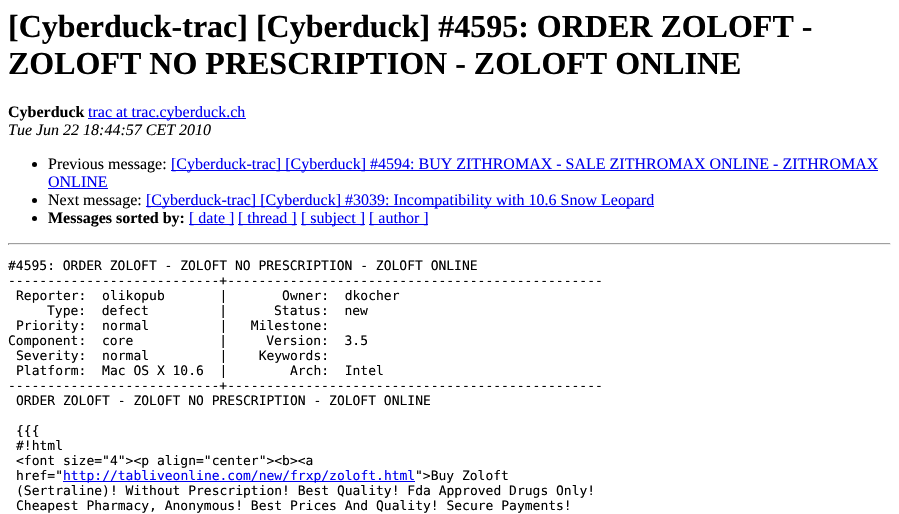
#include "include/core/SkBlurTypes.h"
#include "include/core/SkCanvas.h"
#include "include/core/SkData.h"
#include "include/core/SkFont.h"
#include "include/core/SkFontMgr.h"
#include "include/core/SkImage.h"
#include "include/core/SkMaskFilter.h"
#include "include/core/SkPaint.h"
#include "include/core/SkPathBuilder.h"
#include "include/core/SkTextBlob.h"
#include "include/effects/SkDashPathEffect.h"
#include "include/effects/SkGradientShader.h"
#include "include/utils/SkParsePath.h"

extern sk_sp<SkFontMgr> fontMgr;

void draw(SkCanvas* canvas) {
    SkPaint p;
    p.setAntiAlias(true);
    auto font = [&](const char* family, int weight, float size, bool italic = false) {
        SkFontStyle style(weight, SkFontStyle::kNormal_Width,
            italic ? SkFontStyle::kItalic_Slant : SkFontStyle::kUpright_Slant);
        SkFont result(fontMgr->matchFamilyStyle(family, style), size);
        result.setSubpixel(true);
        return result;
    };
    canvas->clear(0xFFFFFFFF);
    auto font1 = font("Liberation Serif", 700, 32);
    p.setColor(0xFF000000);
    canvas->drawString("[Cyberduck-trac] [Cyberduck] #4595: ORDER ZOLOFT -", 8, 37, font1, p);
    canvas->drawString("ZOLOFT NO PRESCRIPTION - ZOLOFT ONLINE", 8, 74, font1, p);
    auto font2 = font("Liberation Serif", 700, 16);
    canvas->drawString("Cyberduck", 8, 117, font2, p);
    p.setColor(0xFF0000EE);
    canvas->drawRect(SkRect::MakeLTRB(88, 118, 246, 119), p);
    auto font3 = font("Liberation Serif", 400, 16);
    canvas->drawString("trac at trac.cyberduck.ch", 88, 117, font3, p);
    auto font4 = font("Liberation Serif", 400, 16, true);
    p.setColor(0xFF000000);
    canvas->drawString("Tue Jun 22 18:44:57 CET 2010", 8, 135, font4, p);
    canvas->drawCircle(34.5f, 164.5f, 2.5f, p);
    canvas->drawString("Previous message:", 48, 169, font3, p);
    p.setColor(0xFF0000EE);
    canvas->drawRect(SkRect::MakeLTRB(171, 170, 878, 171), p);
    canvas->drawString("[Cyberduck-trac] [Cyberduck] #4594: BUY ZITHROMAX - SALE ZITHROMAX ONLINE - ZITHROMAX", 171, 169, font3, p);
    canvas->drawString("ONLINE", 48, 187, font3, p);
    canvas->drawRect(SkRect::MakeLTRB(48, 188, 108, 189), p);
    p.setColor(0xFF000000);
    canvas->drawCircle(34.5f, 200.5f, 2.5f, p);
    canvas->drawString("Next message:", 48, 205, font3, p);
    p.setColor(0xFF0000EE);
    canvas->drawRect(SkRect::MakeLTRB(146, 206, 654, 207), p);
    canvas->drawString("[Cyberduck-trac] [Cyberduck] #3039: Incompatibility with 10.6 Snow Leopard", 146, 205, font3, p);
    p.setColor(0xFF000000);
    canvas->drawCircle(34.5f, 218.5f, 2.5f, p);
    canvas->drawString("Messages sorted by:", 48, 223, font2, p);
    p.setColor(0xFF0000EE);
    canvas->drawRect(SkRect::MakeLTRB(189, 224, 234, 225), p);
    canvas->drawString("[ date ]", 189, 223, font3, p);
    canvas->drawRect(SkRect::MakeLTRB(238, 224, 297, 225), p);
    canvas->drawString("[ thread ]", 238, 223, font3, p);
    canvas->drawRect(SkRect::MakeLTRB(301, 224, 365, 225), p);
    canvas->drawString("[ subject ]", 301, 223, font3, p);
    canvas->drawRect(SkRect::MakeLTRB(369, 224, 428, 225), p);
    canvas->drawString("[ author ]", 369, 223, font3, p);
    {
        const struct { float l, t, r, b; SkColor color; } items[] = {
            {8, 243, 891, 244, 0xFF9F9F9F},
            {890, 243, 891, 245, 0xFFEEEEEE},
            {8, 244, 891, 245, 0xFFEEEEEE},
            {8, 243, 9, 245, 0xFF9F9F9F},
        };
        for (auto [l, t, r, b, color] : items) {
            p.setColor(color);
            canvas->drawRect(SkRect::MakeLTRB(l, t, r, b), p);
        }
    }
    auto font5 = font("DejaVu Sans Mono", 400, 13);
    p.setColor(0xFF000000);
    {
        const struct { const char* s; float x, y; } items[] = {
            {"#4595: ORDER ZOLOFT - ZOLOFT NO PRESCRIPTION - ZOLOFT ONLINE", 8, 270},
            {"---------------------------+------------------------------------------------", 8, 285},
            {"Reporter:  olikopub       |       Owner:  dkocher", 16, 300},
            {"Type:  defect         |      Status:  new", 47, 315},
            {"Priority:  normal         |   Milestone:", 16, 330},
            {"Component:  core           |     Version:  3.5", 8, 345},
            {"Severity:  normal         |    Keywords:", 16, 360},
            {"Platform:  Mac OS X 10.6  |        Arch:  Intel", 16, 375},
            {"---------------------------+------------------------------------------------", 8, 390},
            {"ORDER ZOLOFT - ZOLOFT NO PRESCRIPTION - ZOLOFT ONLINE", 16, 405},
            {"{{{", 16, 435},
            {"#!html", 16, 450},
            {"<font size=\"4\"><p align=\"center\"><b><a", 16, 465},
            {"href=\"", 16, 480},
        };
        for (auto [s, x, y] : items) {
            canvas->drawString(s, x, y, font5, p);
        }
    }
    p.setColor(0xFF0000EE);
    canvas->drawRect(SkRect::MakeLTRB(63, 481, 415, 482), p);
    canvas->drawString("http://tabliveonline.com/new/frxp/zoloft.html", 63, 480, font5, p);
    p.setColor(0xFF000000);
    {
        const struct { const char* s; float x, y; } items[] = {
            {"\">Buy Zoloft", 415, 480},
            {"(Sertraline)! Without Prescription! Best Quality! Fda Approved Drugs Only!", 16, 495},
            {"Cheapest Pharmacy, Anonymous! Best Prices And Quality! Secure Payments!", 16, 510},
        };
        for (auto [s, x, y] : items) {
            canvas->drawString(s, x, y, font5, p);
        }
    }
}
